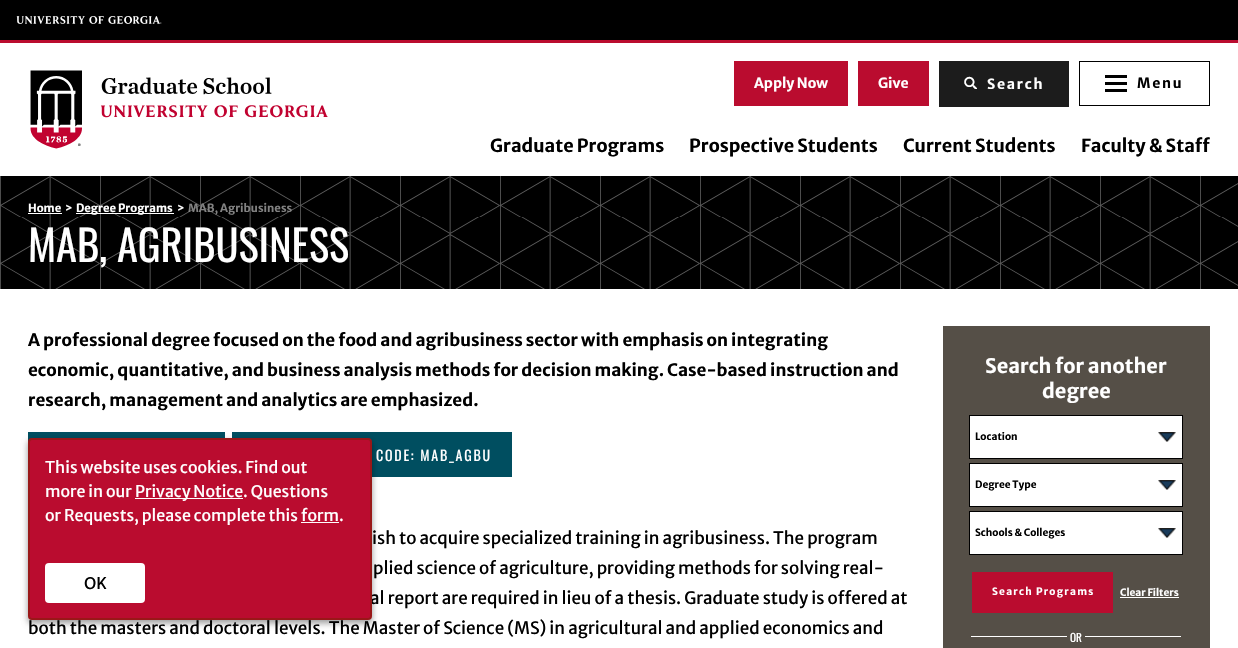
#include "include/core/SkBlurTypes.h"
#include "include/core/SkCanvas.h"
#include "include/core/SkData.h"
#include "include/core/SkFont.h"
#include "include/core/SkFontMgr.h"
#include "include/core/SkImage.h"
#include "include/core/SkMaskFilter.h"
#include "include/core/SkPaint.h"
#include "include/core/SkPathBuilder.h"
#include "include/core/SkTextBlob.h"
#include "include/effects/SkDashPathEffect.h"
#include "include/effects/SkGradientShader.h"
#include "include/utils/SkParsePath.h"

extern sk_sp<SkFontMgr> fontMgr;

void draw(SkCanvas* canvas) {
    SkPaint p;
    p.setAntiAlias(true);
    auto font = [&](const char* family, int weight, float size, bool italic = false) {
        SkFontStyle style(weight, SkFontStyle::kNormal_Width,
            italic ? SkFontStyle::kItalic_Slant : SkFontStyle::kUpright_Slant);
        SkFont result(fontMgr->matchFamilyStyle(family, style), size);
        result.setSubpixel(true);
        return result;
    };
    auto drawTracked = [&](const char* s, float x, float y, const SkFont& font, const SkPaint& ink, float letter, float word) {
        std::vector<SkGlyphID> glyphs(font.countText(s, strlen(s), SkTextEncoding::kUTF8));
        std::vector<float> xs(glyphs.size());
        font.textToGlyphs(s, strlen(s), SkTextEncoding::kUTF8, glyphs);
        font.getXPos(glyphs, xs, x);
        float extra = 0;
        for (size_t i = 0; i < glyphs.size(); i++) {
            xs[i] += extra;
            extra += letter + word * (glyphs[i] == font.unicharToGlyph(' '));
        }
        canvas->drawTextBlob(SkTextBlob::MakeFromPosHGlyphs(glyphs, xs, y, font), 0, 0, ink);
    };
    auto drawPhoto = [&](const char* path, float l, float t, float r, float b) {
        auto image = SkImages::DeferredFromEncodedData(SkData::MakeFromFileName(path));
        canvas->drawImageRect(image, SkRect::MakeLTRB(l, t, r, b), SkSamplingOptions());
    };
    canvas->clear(0xFFFFFFFF);
    p.setColor(0xFF000000);
    canvas->drawRect(SkRect::MakeLTRB(0, 0, 1238, 40), p);
    p.setColor(0xFFBA0C2F);
    canvas->drawRect(SkRect::MakeLTRB(0, 40, 1238, 43), p);
    drawPhoto("media/1.png", 16, 16, 162, 24);
    drawPhoto("media/2.png", 30, 70, 328, 149);
    canvas->drawRect(SkRect::MakeLTRB(734, 61, 848, 106), p);
    auto font1 = font("Merriweather Sans", 700, 14);
    p.setColor(0xFFFFFFFF);
    canvas->drawString("Apply Now", 754, 88, font1, p);
    p.setColor(0xFFBA0C2F);
    canvas->drawRect(SkRect::MakeLTRB(858, 61, 929, 106), p);
    p.setColor(0xFFFFFFFF);
    canvas->drawString("Give", 878, 88, font1, p);
    p.setColor(0xFF1C1C1C);
    canvas->drawRect(SkRect::MakeLTRB(939, 61, 1069, 107), p);
    drawPhoto("media/3.png", 964, 76, 977, 89);
    p.setColor(0xFFFFFFFF);
    drawTracked("Search", 987, 89, font1, p, 1.75f, 0);
    p.setStyle(SkPaint::kStroke_Style);
    p.setStrokeWidth(1);
    p.setColor(0xFF000000);
    canvas->drawRect(SkRect::MakeLTRB(1079.5f, 61.5f, 1209.5f, 105.5f), p);
    drawPhoto("media/4.png", 1105, 75, 1127, 92);
    p.setStyle(SkPaint::kFill_Style);
    drawTracked("Menu", 1137, 88, font1, p, 1.75f, 0);
    auto font2 = font("Merriweather Sans", 700, 18);
    {
        const struct { const char* s; float x, y; } items[] = {
            {"Graduate Programs", 490, 152},
            {"Prospective Students", 689, 152},
            {"Current Students", 903, 152},
            {"Faculty & Staff", 1081, 152},
        };
        for (auto [s, x, y] : items) {
            canvas->drawString(s, x, y, font2, p);
        }
    }
    canvas->drawRect(SkRect::MakeLTRB(0, 176, 1238, 289), p);
    drawPhoto("media/5.png", 0, 176, 1238, 289);
    auto font3 = font("Merriweather Sans", 700, 11.25f);
    p.setColor(0xFFFFFFFF);
    canvas->drawString("Home", 28, 212, font3, p);
    canvas->drawRect(SkRect::MakeLTRB(28, 213, 62, 214), p);
    canvas->drawString(">", 65, 212, font3, p);
    canvas->drawRect(SkRect::MakeLTRB(76, 213, 174, 214), p);
    canvas->drawString("Degree Programs", 76, 212, font3, p);
    canvas->drawString(">", 177, 212, font3, p);
    p.setColor(0xFF828282);
    canvas->drawString("MAB, Agribusiness", 188, 212, font3, p);
    auto font4 = font("Oswald", 400, 42.5f);
    p.setColor(0xFFFFFFFF);
    canvas->drawString("MAB, AGRIBUSINESS", 28, 262, font4, p);
    auto font5 = font("Merriweather Sans", 700, 17.03f);
    p.setColor(0xFF000000);
    {
        const struct { const char* s; float x, y; } items[] = {
            {"A professional degree focused on the food and agribusiness sector with emphasis on integrating", 28, 346},
            {"economic, quantitative, and business analysis methods for decision making. Case-based instruction and", 28, 376},
            {"research, management and analytics are emphasized.", 28, 406},
        };
        for (auto [s, x, y] : items) {
            canvas->drawString(s, x, y, font5, p);
        }
    }
    p.setColor(0xFF004E60);
    canvas->drawRect(SkRect::MakeLTRB(28, 432, 225, 442), p);
    canvas->drawRect(SkRect::MakeLTRB(232, 432, 512, 477), p);
    auto font6 = font("Oswald", 400, 14);
    p.setColor(0xFFFFFFFF);
    drawTracked("CODE: MAB_AGBU", 376, 461, font6, p, 1.75f, 0);
    auto font7 = font("Merriweather Sans", 400, 17.03f);
    p.setColor(0xFF000000);
    {
        const struct { const char* s; float x, y; } items[] = {
            {"ish to acquire specialized training in agribusiness. The program", 372, 544},
            {"plied science of agriculture, providing methods for solving real-", 373, 574},
            {"al report are required in lieu of a thesis. Graduate study is offered at", 370, 604},
            {"both the masters and doctoral levels. The Master of Science (MS) in agricultural and applied economics and", 28, 634},
        };
        for (auto [s, x, y] : items) {
            canvas->drawString(s, x, y, font7, p);
        }
    }
    p.setColor(0xFF554F47);
    canvas->drawRect(SkRect::MakeLTRB(943, 326, 1210, 648), p);
    auto font8 = font("Merriweather Sans", 700, 19.9f);
    p.setColor(0xFFFFFFFF);
    canvas->drawString("Search for another", 985, 373, font8, p);
    canvas->drawString("degree", 1042, 398, font8, p);
    canvas->drawRect(SkRect::MakeLTRB(970, 416, 1182, 458), p);
    drawPhoto("media/6.png", 1158, 432, 1176, 442);
    p.setStyle(SkPaint::kStroke_Style);
    p.setColor(0xFF000000);
    canvas->drawRect(SkRect::MakeLTRB(969.5f, 415.5f, 1182.5f, 458.5f), p);
    auto font9 = font("Merriweather Sans", 700, 10);
    p.setStyle(SkPaint::kFill_Style);
    canvas->drawString("Location", 975, 440, font9, p);
    p.setColor(0xFFFFFFFF);
    canvas->drawRect(SkRect::MakeLTRB(970, 464, 1182, 506), p);
    drawPhoto("media/6.png", 1158, 480, 1176, 490);
    p.setStyle(SkPaint::kStroke_Style);
    p.setColor(0xFF000000);
    canvas->drawRect(SkRect::MakeLTRB(969.5f, 463.5f, 1182.5f, 506.5f), p);
    p.setStyle(SkPaint::kFill_Style);
    canvas->drawString("Degree Type", 975, 488, font9, p);
    p.setColor(0xFFFFFFFF);
    canvas->drawRect(SkRect::MakeLTRB(970, 512, 1182, 554), p);
    drawPhoto("media/6.png", 1158, 528, 1176, 538);
    p.setStyle(SkPaint::kStroke_Style);
    p.setColor(0xFF000000);
    canvas->drawRect(SkRect::MakeLTRB(969.5f, 511.5f, 1182.5f, 554.5f), p);
    p.setStyle(SkPaint::kFill_Style);
    canvas->drawString("Schools & Colleges", 975, 536, font9, p);
    p.setColor(0xFFBA0C2F);
    canvas->drawRect(SkRect::MakeLTRB(972, 572, 1113, 613), p);
    p.setColor(0xFFFFFFFF);
    drawTracked("Search Programs", 992, 595, font9, p, 1.25f, 0);
    canvas->drawString("Clear Filters", 1120, 596, font9, p);
    canvas->drawRect(SkRect::MakeLTRB(1120, 597, 1179, 598), p);
    canvas->drawRect(SkRect::MakeLTRB(971, 636, 1067, 637), p);
    auto font10 = font("Oswald", 400, 11.25f);
    canvas->drawString("OR", 1070, 642, font10, p);
    canvas->drawRect(SkRect::MakeLTRB(1085, 636, 1181, 637), p);
    p.setColor(0x40000000);
    p.setMaskFilter(SkMaskFilter::MakeBlur(kNormal_SkBlurStyle, 3));
    canvas->drawRoundRect(SkRect::MakeLTRB(28, 441, 372, 623), 4, 4, p);
    p.setMaskFilter(nullptr);
    p.setColor(0x2E000000);
    p.setMaskFilter(SkMaskFilter::MakeBlur(kNormal_SkBlurStyle, 3));
    canvas->drawRoundRect(SkRect::MakeLTRB(28, 441, 372, 623), 4, 4, p);
    p.setMaskFilter(nullptr);
    p.setColor(0xFFBA0C2F);
    canvas->drawRoundRect(SkRect::MakeLTRB(29, 439, 371, 619), 3, 3, p);
    p.setStyle(SkPaint::kStroke_Style);
    p.setStrokeWidth(2);
    p.setColor(0xFF991718);
    canvas->drawRoundRect(SkRect::MakeLTRB(29, 439, 371, 619), 3, 3, p);
    auto font11 = font("Merriweather Sans", 400, 16);
    p.setStyle(SkPaint::kFill_Style);
    p.setColor(0xFFFFFFFF);
    canvas->drawString("This website uses cookies. Find out", 45, 473, font11, p);
    canvas->drawString("more in our", 45, 497, font11, p);
    p.setColor(0xFFFEFEFE);
    canvas->drawRect(SkRect::MakeLTRB(135, 498, 243, 499), p);
    p.setColor(0xFFFFFFFF);
    {
        const struct { const char* s; float x, y; } items[] = {
            {"Privacy Notice", 135, 497},
            {". Questions", 243, 497},
            {"or Requests, please complete this", 45, 521},
            {"form", 301, 521},
        };
        for (auto [s, x, y] : items) {
            canvas->drawString(s, x, y, font11, p);
        }
    }
    p.setColor(0xFFFEFEFE);
    canvas->drawRect(SkRect::MakeLTRB(301, 522, 339, 523), p);
    p.setColor(0xFFFFFFFF);
    canvas->drawString(".", 339, 521, font11, p);
    canvas->drawRoundRect(SkRect::MakeLTRB(45, 563, 145, 603), 4, 4, p);
    p.setColor(0xFF000000);
    canvas->drawString("OK", 84, 589, font11, p);
}
